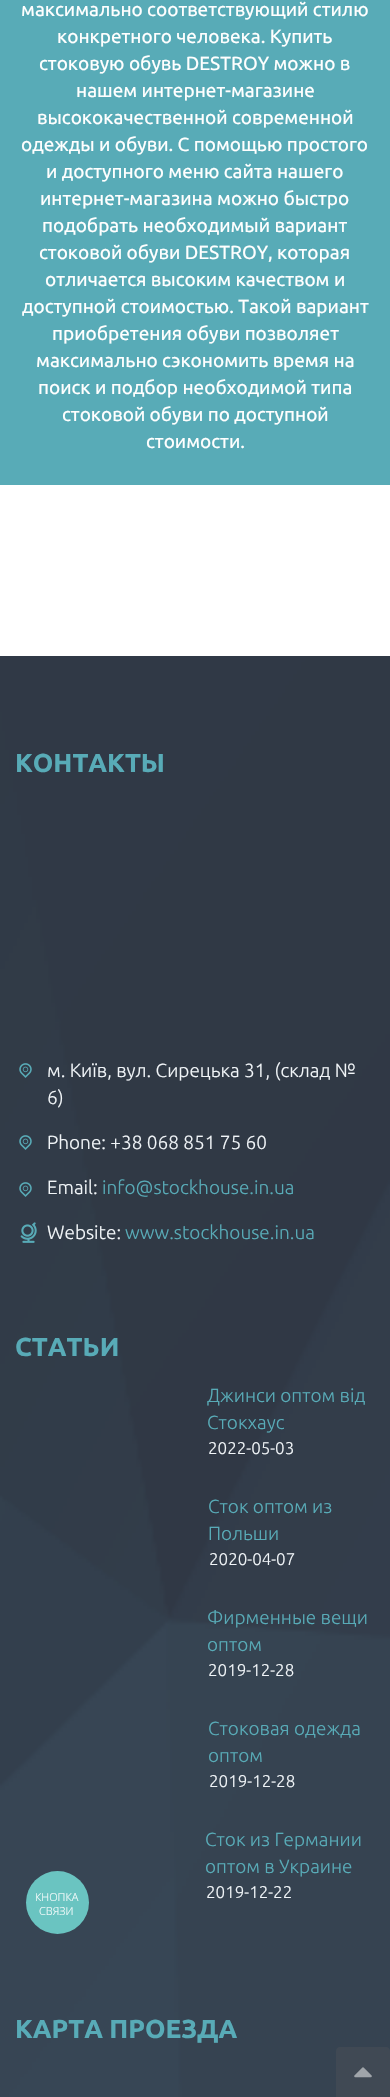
#include "include/core/SkBlurTypes.h"
#include "include/core/SkCanvas.h"
#include "include/core/SkData.h"
#include "include/core/SkFont.h"
#include "include/core/SkFontMgr.h"
#include "include/core/SkImage.h"
#include "include/core/SkMaskFilter.h"
#include "include/core/SkPaint.h"
#include "include/core/SkPathBuilder.h"
#include "include/core/SkTextBlob.h"
#include "include/effects/SkDashPathEffect.h"
#include "include/effects/SkGradientShader.h"
#include "include/utils/SkParsePath.h"

extern sk_sp<SkFontMgr> fontMgr;

void draw(SkCanvas* canvas) {
    SkPaint p;
    p.setAntiAlias(true);
    auto font = [&](const char* family, int weight, float size, bool italic = false) {
        SkFontStyle style(weight, SkFontStyle::kNormal_Width,
            italic ? SkFontStyle::kItalic_Slant : SkFontStyle::kUpright_Slant);
        SkFont result(fontMgr->matchFamilyStyle(family, style), size);
        result.setSubpixel(true);
        return result;
    };
    auto drawPhoto = [&](const char* path, float l, float t, float r, float b) {
        auto image = SkImages::DeferredFromEncodedData(SkData::MakeFromFileName(path));
        canvas->drawImageRect(image, SkRect::MakeLTRB(l, t, r, b), SkSamplingOptions());
    };
    canvas->clear(0xFFFFFFFF);
    p.setColor(0xFF58ABB7);
    canvas->drawRect(SkRect::MakeLTRB(0, 0, 390, 485), p);
    auto font1 = font("Ubuntu", 400, 19);
    p.setColor(0xFFFFFFFF);
    {
        const struct { const char* s; float x, y; } items[] = {
            {"максимально соответствующий стилю", 21, 16},
            {"конкретного человека. Купить", 57, 43},
            {"стоковую обувь DESTRОY можно в", 39, 70},
            {"нашем интернет-магазине", 76, 97},
            {"высококачественной современной", 37, 124},
            {"одежды и обуви. С помощью простого", 21, 151},
            {"и доступного меню сайта нашего", 46, 178},
            {"интернет-магазина можно быстро", 40, 205},
            {"подобрать необходимый вариант", 42, 232},
            {"стоковой обуви DESTRОY, которая", 39, 259},
            {"отличается высоким качеством и", 45, 286},
            {"доступной стоимостью. Такой вариант", 22, 313},
            {"приобретения обуви позволяет", 52, 340},
            {"максимально сэкономить время на", 36, 367},
            {"поиск и подбор необходимой типа", 38, 394},
            {"стоковой обуви по доступной", 62, 421},
            {"стоимости.", 146, 448},
        };
        for (auto [s, x, y] : items) {
            canvas->drawString(s, x, y, font1, p);
        }
    }
    drawPhoto("media/1.png", 0, 656, 390, 2097);
    auto font2 = font("Ubuntu", 700, 26);
    p.setColor(0xFF58ABB7);
    canvas->drawString("КОНТАКТЫ", 15, 772, font2, p);
    drawPhoto("media/2.png", 19, 1063, 32, 1078);
    auto font3 = font("Ubuntu", 300, 19);
    p.setColor(0xFFF1F5F8);
    canvas->drawString("м. Київ, вул. Сирецька 31, (склад №", 47, 1077, font3, p);
    canvas->drawString("6)", 47, 1104, font3, p);
    drawPhoto("media/3.png", 19, 1135, 32, 1150);
    canvas->drawString("Phone: +38 068 851 75 60", 47, 1149, font3, p);
    drawPhoto("media/3.png", 19, 1182, 32, 1197);
    canvas->drawString("Email:", 47, 1194, font3, p);
    p.setColor(0xFF58ABB7);
    canvas->drawString("info@stockhouse.in.ua", 102, 1194, font3, p);
    drawPhoto("media/4.png", 20, 1222, 37, 1243);
    p.setColor(0xFFF1F5F8);
    canvas->drawString("Website:", 47, 1239, font3, p);
    p.setColor(0xFF58ABB7);
    canvas->drawString("www.stockhouse.in.ua", 125, 1239, font3, p);
    canvas->drawString("СТАТЬИ", 15, 1356, font2, p);
    canvas->drawString("Джинси оптом від", 207, 1402, font3, p);
    canvas->drawString("Стокхаус", 207, 1429, font3, p);
    auto font4 = font("Ubuntu", 300, 17);
    p.setColor(0xFFF1F5F8);
    canvas->drawString("2022-05-03", 208, 1454, font4, p);
    p.setColor(0xFF58ABB7);
    canvas->drawString("Сток оптом из", 208, 1513, font3, p);
    canvas->drawString("Польши", 208, 1540, font3, p);
    p.setColor(0xFFF1F5F8);
    canvas->drawString("2020-04-07", 209, 1565, font4, p);
    p.setColor(0xFF58ABB7);
    canvas->drawString("Фирменные вещи", 207, 1624, font3, p);
    canvas->drawString("оптом", 207, 1651, font3, p);
    p.setColor(0xFFF1F5F8);
    canvas->drawString("2019-12-28", 208, 1676, font4, p);
    p.setColor(0xFF58ABB7);
    canvas->drawString("Стоковая одежда", 208, 1735, font3, p);
    canvas->drawString("оптом", 208, 1762, font3, p);
    p.setColor(0xFFF1F5F8);
    canvas->drawString("2019-12-28", 209, 1787, font4, p);
    p.setColor(0xFF58ABB7);
    canvas->drawString("Сток из Германии", 205, 1846, font3, p);
    canvas->drawString("оптом в Украине", 205, 1873, font3, p);
    p.setColor(0xFFF1F5F8);
    canvas->drawString("2019-12-22", 206, 1898, font4, p);
    p.setColor(0xFF58ABB7);
    canvas->drawString("КАРТА ПРОЕЗДА", 15, 2038, font2, p);
    p.setColor(0xFF404954);
    canvas->drawPath(SkPathBuilder().moveTo(340, 2047).lineTo(386, 2047).cubicTo(388, 2047, 390, 2049, 390, 2051).lineTo(390, 2097).lineTo(336, 2097).lineTo(336, 2051).cubicTo(336, 2049, 338, 2047, 340, 2047).close().detach(), p);
    drawPhoto("media/5.png", 354, 2067, 372, 2078);
    p.setColor(0xFF6AC4C1);
    canvas->drawCircle(57.5f, 1902.5f, 31.5f, p);
    auto font5 = font("Open Sans", 300, 11);
    p.setColor(0xFFFFFFFF);
    canvas->drawString("КНОПКА", 35, 1901, font5, p);
    canvas->drawString("СВЯЗИ", 39, 1915, font5, p);
}
